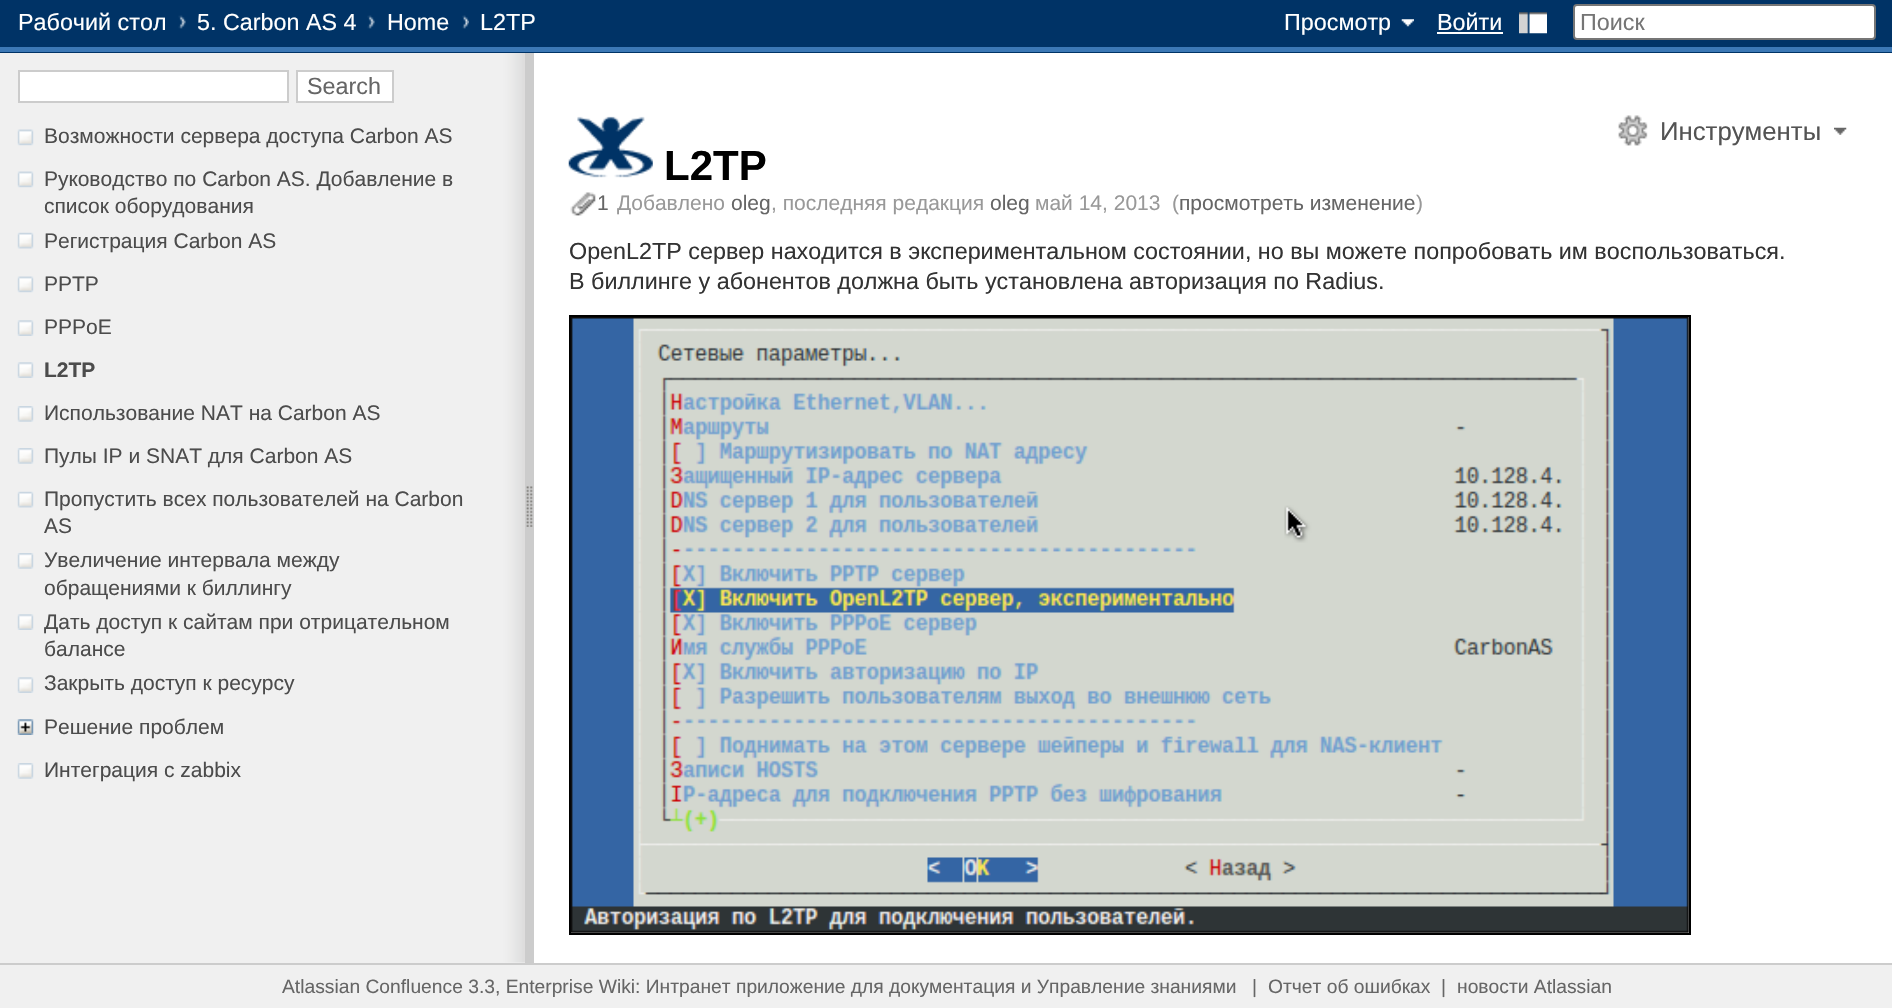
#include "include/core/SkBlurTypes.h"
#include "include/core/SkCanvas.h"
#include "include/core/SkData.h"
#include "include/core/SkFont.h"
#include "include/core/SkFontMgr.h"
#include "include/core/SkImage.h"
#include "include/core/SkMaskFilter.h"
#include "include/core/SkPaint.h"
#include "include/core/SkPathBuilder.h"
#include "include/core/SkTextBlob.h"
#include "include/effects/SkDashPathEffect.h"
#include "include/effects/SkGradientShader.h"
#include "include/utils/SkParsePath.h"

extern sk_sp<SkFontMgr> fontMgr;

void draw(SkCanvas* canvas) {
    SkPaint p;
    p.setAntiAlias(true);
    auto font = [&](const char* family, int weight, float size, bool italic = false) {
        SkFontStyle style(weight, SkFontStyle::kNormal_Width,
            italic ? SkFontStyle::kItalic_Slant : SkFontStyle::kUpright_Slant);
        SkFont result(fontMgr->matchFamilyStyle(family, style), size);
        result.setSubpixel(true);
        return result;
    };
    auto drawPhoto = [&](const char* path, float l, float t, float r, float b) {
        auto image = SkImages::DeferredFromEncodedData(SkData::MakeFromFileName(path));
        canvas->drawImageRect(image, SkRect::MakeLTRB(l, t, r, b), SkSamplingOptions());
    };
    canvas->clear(0xFFFFFFFF);
    p.setColor(0xFF003366);
    canvas->drawRect(SkRect::MakeLTRB(0, 0, 1892, 53), p);
    p.setColor(0xFF3C78B5);
    canvas->drawRect(SkRect::MakeLTRB(0, 47, 1892, 52), p);
    auto font1 = font("Liberation Sans", 400, 23.33f);
    p.setColor(0xFFFFFFFF);
    canvas->drawString("Рабочий стол", 18, 30, font1, p);
    drawPhoto("media/1.png", 178, 15, 186, 29);
    canvas->drawString("5. Carbon AS 4", 197, 30, font1, p);
    drawPhoto("media/2.png", 367, 15, 375, 29);
    canvas->drawString("Home", 387, 30, font1, p);
    drawPhoto("media/3.png", 462, 15, 469, 29);
    canvas->drawString("L2TP", 480, 30, font1, p);
    drawPhoto("media/4.png", 1401, 19, 1414, 27);
    canvas->drawString("Просмотр", 1284, 30, font1, p);
    canvas->drawString("Войти", 1437, 30, font1, p);
    canvas->drawRect(SkRect::MakeLTRB(1437, 32, 1503, 34), p);
    drawPhoto("media/5.png", 1519, 12, 1547, 34);
    canvas->drawRoundRect(SkRect::MakeLTRB(1574, 5, 1875, 39), 3, 3, p);
    p.setStyle(SkPaint::kStroke_Style);
    p.setStrokeWidth(2);
    p.setColor(0xFF767676);
    canvas->drawRoundRect(SkRect::MakeLTRB(1574, 5, 1875, 39), 3, 3, p);
    p.setStyle(SkPaint::kFill_Style);
    p.setColor(0xFF757575);
    canvas->drawString("Поиск", 1580, 30, font1, p);
    p.setColor(0xFFF0F0F0);
    canvas->drawRect(SkRect::MakeLTRB(0, 53, 525, 963), p);
    drawPhoto("media/6.png", 490, 53, 525, 963);
    p.setColor(0xFFFFFFFF);
    canvas->drawRect(SkRect::MakeLTRB(19, 71, 288, 102), p);
    p.setStyle(SkPaint::kStroke_Style);
    p.setColor(0xFFCCCCCC);
    canvas->drawRect(SkRect::MakeLTRB(19, 71, 288, 102), p);
    p.setStyle(SkPaint::kFill_Style);
    p.setColor(0xFFFFFFFF);
    canvas->drawRect(SkRect::MakeLTRB(297, 71, 393, 102), p);
    p.setStyle(SkPaint::kStroke_Style);
    p.setColor(0xFFCCCCCC);
    canvas->drawRect(SkRect::MakeLTRB(297, 71, 393, 102), p);
    p.setStyle(SkPaint::kFill_Style);
    p.setColor(0xFF666666);
    canvas->drawString("Search", 307, 94, font1, p);
    drawPhoto("media/7.png", 17, 129, 34, 146);
    auto font2 = font("Liberation Sans", 400, 21);
    p.setColor(0xFF4C4C4C);
    canvas->drawString("Возможности сервера доступа Carbon AS", 44, 143, font2, p);
    drawPhoto("media/7.png", 17, 171, 34, 188);
    canvas->drawString("Руководство по Carbon AS. Добавление в", 44, 186, font2, p);
    canvas->drawString("список оборудования", 44, 213, font2, p);
    drawPhoto("media/8.png", 17, 232, 34, 249);
    canvas->drawString("Регистрация Carbon AS", 44, 248, font2, p);
    drawPhoto("media/7.png", 17, 276, 34, 293);
    canvas->drawString("PPTP", 44, 291, font2, p);
    drawPhoto("media/9.png", 17, 320, 34, 336);
    canvas->drawString("PPPoE", 44, 334, font2, p);
    drawPhoto("media/9.png", 17, 362, 34, 378);
    auto font3 = font("Liberation Sans", 700, 21);
    canvas->drawString("L2TP", 44, 377, font3, p);
    drawPhoto("media/10.png", 17, 406, 34, 422);
    canvas->drawString("Использование NAT на Carbon AS", 44, 420, font2, p);
    drawPhoto("media/10.png", 17, 448, 34, 464);
    canvas->drawString("Пулы IP и SNAT для Carbon AS", 44, 463, font2, p);
    drawPhoto("media/8.png", 17, 491, 34, 508);
    canvas->drawString("Пропустить всех пользователей на Carbon", 44, 506, font2, p);
    canvas->drawString("AS", 44, 533, font2, p);
    drawPhoto("media/10.png", 17, 553, 34, 569);
    canvas->drawString("Увеличение интервала между", 44, 567, font2, p);
    canvas->drawString("обращениями к биллингу", 44, 595, font2, p);
    drawPhoto("media/9.png", 17, 614, 34, 630);
    canvas->drawString("Дать доступ к сайтам при отрицательном", 44, 629, font2, p);
    canvas->drawString("балансе", 44, 656, font2, p);
    drawPhoto("media/9.png", 17, 677, 34, 693);
    canvas->drawString("Закрыть доступ к ресурсу", 44, 690, font2, p);
    drawPhoto("media/11.png", 17, 719, 34, 735);
    canvas->drawString("Решение проблем", 44, 734, font2, p);
    drawPhoto("media/10.png", 17, 763, 34, 779);
    canvas->drawString("Интеграция с zabbix", 44, 777, font2, p);
    p.setColor(0xFFCCCCCC);
    canvas->drawRect(SkRect::MakeLTRB(525, 53, 534, 963), p);
    drawPhoto("media/12.png", 526, 486, 533, 527);
    drawPhoto("media/13.png", 1834, 127, 1847, 135);
    drawPhoto("media/14.png", 1618, 115, 1648, 146);
    auto font4 = font("Liberation Sans", 400, 25.75f);
    p.setColor(0xFF535353);
    canvas->drawString("Инструменты", 1660, 140, font4, p);
    drawPhoto("media/15.png", 568, 116, 653, 178);
    auto font5 = font("Liberation Sans", 700, 42);
    p.setColor(0xFF000000);
    canvas->drawString("L2TP", 664, 180, font5, p);
    drawPhoto("media/16.png", 570, 192, 596, 216);
    p.setColor(0xFF666666);
    canvas->drawString("1", 597, 210, font2, p);
    p.setColor(0xFF999999);
    canvas->drawString("Добавлено", 617, 210, font2, p);
    p.setColor(0xFF666666);
    canvas->drawString("oleg", 731, 210, font2, p);
    p.setColor(0xFF999999);
    canvas->drawString(", последняя редакция", 771, 210, font2, p);
    p.setColor(0xFF666666);
    canvas->drawString("oleg", 990, 210, font2, p);
    p.setColor(0xFF999999);
    canvas->drawString("май 14, 2013", 1035, 210, font2, p);
    canvas->drawString("(", 1172, 210, font2, p);
    p.setColor(0xFF666666);
    canvas->drawString("просмотреть изменение", 1179, 210, font2, p);
    p.setColor(0xFF999999);
    canvas->drawString(")", 1416, 210, font2, p);
    p.setColor(0xFF333333);
    canvas->drawString("OpenL2TP сервер находится в экспериментальном состоянии, но вы можете попробовать им воспользоваться.", 569, 259, font1, p);
    canvas->drawString("В биллинге у абонентов должна быть установлена авторизация по Radius.", 569, 289, font1, p);
    p.setStyle(SkPaint::kStroke_Style);
    p.setColor(0xFF000000);
    canvas->drawRect(SkRect::MakeLTRB(570, 316, 1690, 934), p);
    drawPhoto("media/17.png", 570, 317, 1689, 933);
    p.setStyle(SkPaint::kFill_Style);
    p.setColor(0xFFF0F0F0);
    canvas->drawRect(SkRect::MakeLTRB(0, 965, 1892, 1008), p);
    p.setColor(0xFFCCCCCC);
    canvas->drawRect(SkRect::MakeLTRB(0, 963, 1892, 965), p);
    auto font6 = font("Liberation Sans", 400, 19.25f);
    p.setColor(0xFF666666);
    {
        const struct { const char* s; float x, y; } items[] = {
            {"Atlassian Confluence 3.3, Enterprise Wiki: Интранет приложение для документация и Управление знаниями", 282, 993},
            {"|", 1252, 993},
            {"Отчет об ошибках", 1268, 993},
            {"|", 1441, 993},
            {"новости Atlassian", 1457, 993},
        };
        for (auto [s, x, y] : items) {
            canvas->drawString(s, x, y, font6, p);
        }
    }
}
